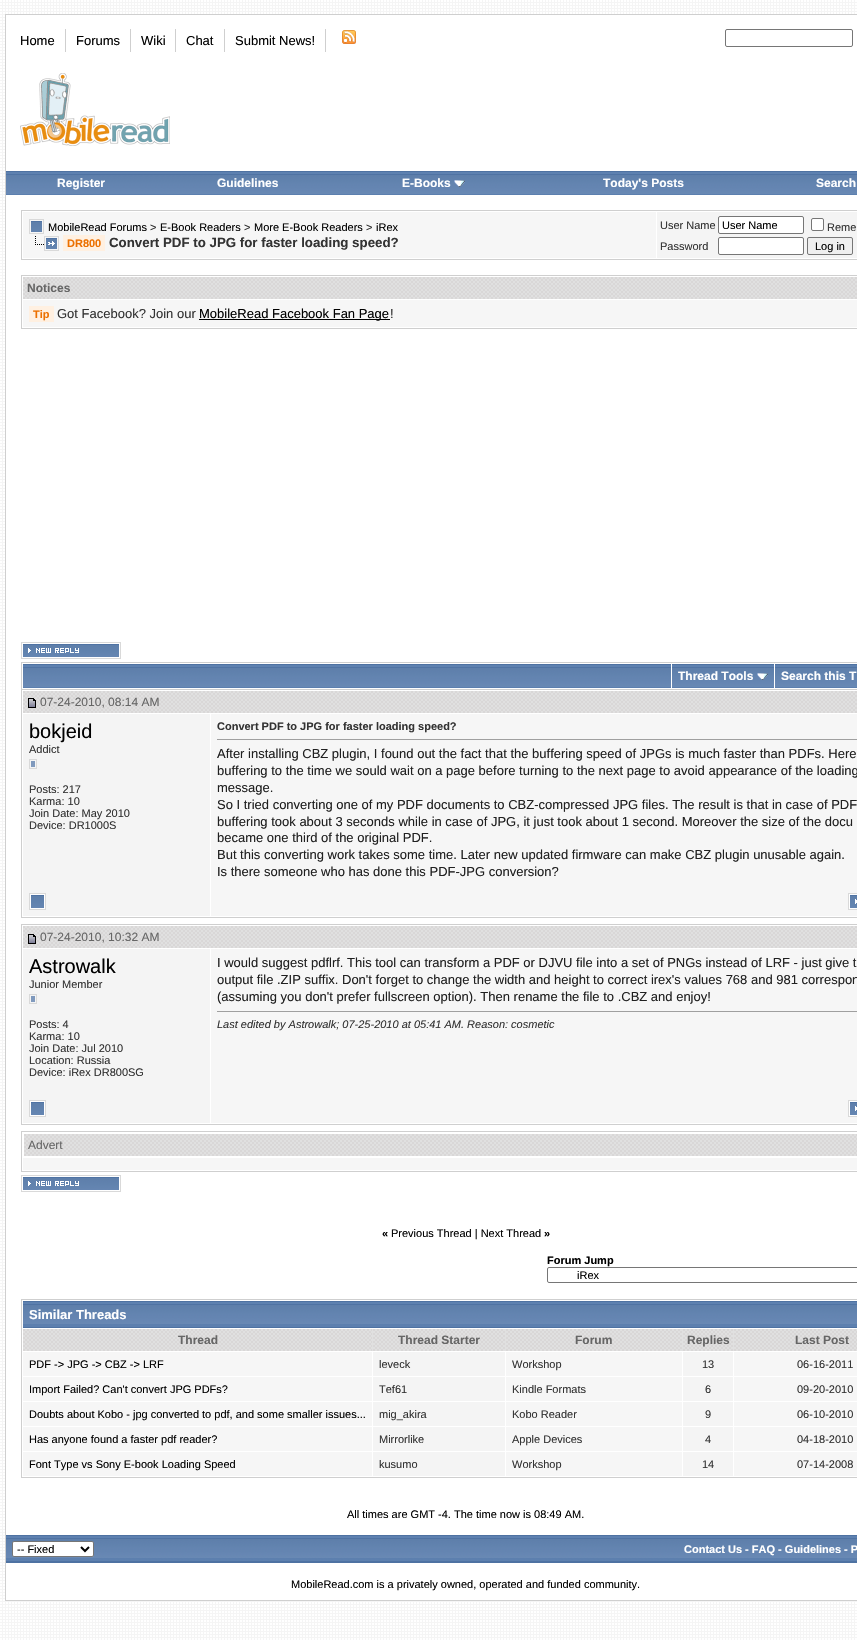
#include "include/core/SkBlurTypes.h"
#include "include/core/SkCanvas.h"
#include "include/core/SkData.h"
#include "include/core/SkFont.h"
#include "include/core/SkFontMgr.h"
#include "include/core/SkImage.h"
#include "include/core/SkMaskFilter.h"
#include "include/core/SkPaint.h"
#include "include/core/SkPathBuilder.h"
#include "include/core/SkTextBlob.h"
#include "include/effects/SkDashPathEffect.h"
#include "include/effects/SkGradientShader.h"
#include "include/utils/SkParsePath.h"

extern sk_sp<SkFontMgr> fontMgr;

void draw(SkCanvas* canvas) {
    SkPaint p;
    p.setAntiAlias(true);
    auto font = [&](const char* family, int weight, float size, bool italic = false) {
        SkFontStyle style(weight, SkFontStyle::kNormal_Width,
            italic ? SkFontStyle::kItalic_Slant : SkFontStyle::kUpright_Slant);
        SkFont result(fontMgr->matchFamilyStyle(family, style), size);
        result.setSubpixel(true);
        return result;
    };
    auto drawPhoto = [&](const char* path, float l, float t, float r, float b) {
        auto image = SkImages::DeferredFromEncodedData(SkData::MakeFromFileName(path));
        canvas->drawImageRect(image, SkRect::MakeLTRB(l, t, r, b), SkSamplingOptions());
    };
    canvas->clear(0xFFFFFFFF);
    drawPhoto("media/1.png", 0, 0, 857, 1640);
    p.setColor(0xFFFFFFFF);
    canvas->drawRect(SkRect::MakeLTRB(5.5f, 14.5f, 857.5f, 1600.5f), p);
    p.setStyle(SkPaint::kStroke_Style);
    p.setStrokeWidth(1);
    p.setColor(0xFFCFCFCF);
    canvas->drawRect(SkRect::MakeLTRB(5.5f, 14.5f, 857.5f, 1600.5f), p);
    auto font1 = font("Liberation Sans", 400, 13);
    p.setStyle(SkPaint::kFill_Style);
    p.setColor(0xFF000000);
    canvas->drawString("Home", 20, 45, font1, p);
    p.setColor(0xFFCFCFCF);
    canvas->drawRect(SkRect::MakeLTRB(65, 29, 66, 52), p);
    p.setColor(0xFF000000);
    canvas->drawString("Forums", 76, 45, font1, p);
    p.setColor(0xFFCFCFCF);
    canvas->drawRect(SkRect::MakeLTRB(130, 29, 131, 52), p);
    p.setColor(0xFF000000);
    canvas->drawString("Wiki", 141, 45, font1, p);
    p.setColor(0xFFCFCFCF);
    canvas->drawRect(SkRect::MakeLTRB(175, 29, 176, 52), p);
    p.setColor(0xFF000000);
    canvas->drawString("Chat", 186, 45, font1, p);
    p.setColor(0xFFCFCFCF);
    canvas->drawRect(SkRect::MakeLTRB(224, 29, 225, 52), p);
    p.setColor(0xFF000000);
    canvas->drawString("Submit News!", 235, 45, font1, p);
    p.setColor(0xFFCFCFCF);
    canvas->drawRect(SkRect::MakeLTRB(325, 29, 326, 52), p);
    drawPhoto("media/2.png", 342, 30, 356, 44);
    p.setStyle(SkPaint::kStroke_Style);
    p.setColor(0xFF767676);
    canvas->drawRoundRect(SkRect::MakeLTRB(725.5f, 29.5f, 852.5f, 46.5f), 1.5f, 1.5f, p);
    drawPhoto("media/3.png", 20, 73, 170, 146);
    p.setStyle(SkPaint::kFill_Style);
    p.setColor(0xFF4E72A2);
    canvas->drawRect(SkRect::MakeLTRB(6, 171, 857, 172), p);
    drawPhoto("media/4.png", 6, 172, 156, 195);
    auto font2 = font("Liberation Sans", 700, 12);
    p.setColor(0xFFFFFFFF);
    canvas->drawString("Register", 57, 187, font2, p);
    drawPhoto("media/5.png", 156, 172, 340, 195);
    canvas->drawString("Guidelines", 217, 187, font2, p);
    drawPhoto("media/6.png", 340, 172, 527, 195);
    canvas->drawString("E-Books", 402, 187, font2, p);
    drawPhoto("media/7.png", 454, 180, 465, 187);
    drawPhoto("media/8.png", 527, 172, 760, 195);
    canvas->drawString("Today's Posts", 603, 187, font2, p);
    drawPhoto("media/9.png", 760, 172, 857, 195);
    canvas->drawString("Search", 816, 187, font2, p);
    p.setStyle(SkPaint::kStroke_Style);
    p.setColor(0xFFCFCFCF);
    canvas->drawRect(SkRect::MakeLTRB(21.5f, 210.5f, 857.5f, 259.5f), p);
    p.setStyle(SkPaint::kFill_Style);
    p.setColor(0xFFF6F6F6);
    canvas->drawRect(SkRect::MakeLTRB(23, 212, 656, 258), p);
    drawPhoto("media/10.png", 29, 219, 44, 234);
    auto font3 = font("Liberation Sans", 400, 11);
    p.setColor(0xFF000000);
    canvas->drawString("MobileRead Forums", 48, 231, font3, p);
    p.setColor(0xFF333333);
    canvas->drawString(">", 150, 231, font3, p);
    p.setColor(0xFF000000);
    canvas->drawString("E-Book Readers", 160, 231, font3, p);
    p.setColor(0xFF333333);
    canvas->drawString(">", 244, 231, font3, p);
    p.setColor(0xFF000000);
    canvas->drawString("More E-Book Readers", 254, 231, font3, p);
    p.setColor(0xFF333333);
    canvas->drawString(">", 366, 231, font3, p);
    p.setColor(0xFF000000);
    canvas->drawString("iRex", 376, 231, font3, p);
    drawPhoto("media/11.png", 35, 236, 59, 251);
    p.setColor(0xFFFFF0E1);
    canvas->drawRect(SkRect::MakeLTRB(63, 235, 105, 251), p);
    auto font4 = font("Liberation Sans", 700, 11);
    p.setColor(0xFFEC7000);
    canvas->drawString("DR800", 67, 247, font4, p);
    auto font5 = font("Liberation Sans", 700, 13.3f);
    p.setColor(0xFF333333);
    canvas->drawString("Convert PDF to JPG for faster loading speed?", 109, 247, font5, p);
    p.setColor(0xFFF4F4F4);
    canvas->drawRect(SkRect::MakeLTRB(657, 212, 857, 258), p);
    p.setColor(0xFF333333);
    canvas->drawString("User Name", 660, 229, font3, p);
    p.setColor(0xFFFFFFFF);
    canvas->drawRoundRect(SkRect::MakeLTRB(718.5f, 216.5f, 803.5f, 233.5f), 1.5f, 1.5f, p);
    p.setStyle(SkPaint::kStroke_Style);
    p.setColor(0xFF767676);
    canvas->drawRoundRect(SkRect::MakeLTRB(718.5f, 216.5f, 803.5f, 233.5f), 1.5f, 1.5f, p);
    p.setStyle(SkPaint::kFill_Style);
    p.setColor(0xFF000000);
    canvas->drawString("User Name", 722, 229, font3, p);
    p.setColor(0xFFFFFFFF);
    canvas->drawRoundRect(SkRect::MakeLTRB(811.5f, 218.5f, 823.5f, 230.5f), 1.5f, 1.5f, p);
    p.setStyle(SkPaint::kStroke_Style);
    p.setColor(0xFF767676);
    canvas->drawRoundRect(SkRect::MakeLTRB(811.5f, 218.5f, 823.5f, 230.5f), 1.5f, 1.5f, p);
    p.setStyle(SkPaint::kFill_Style);
    p.setColor(0xFF333333);
    canvas->drawString("Reme", 827, 231, font3, p);
    canvas->drawString("Password", 660, 250, font3, p);
    p.setColor(0xFFFFFFFF);
    canvas->drawRoundRect(SkRect::MakeLTRB(718.5f, 237.5f, 803.5f, 254.5f), 1.5f, 1.5f, p);
    p.setStyle(SkPaint::kStroke_Style);
    p.setColor(0xFF767676);
    canvas->drawRoundRect(SkRect::MakeLTRB(718.5f, 237.5f, 803.5f, 254.5f), 1.5f, 1.5f, p);
    p.setStyle(SkPaint::kFill_Style);
    p.setColor(0xFFEFEFEF);
    canvas->drawRoundRect(SkRect::MakeLTRB(807.5f, 237.5f, 852.5f, 254.5f), 1.5f, 1.5f, p);
    p.setStyle(SkPaint::kStroke_Style);
    p.setColor(0xFF767676);
    canvas->drawRoundRect(SkRect::MakeLTRB(807.5f, 237.5f, 852.5f, 254.5f), 1.5f, 1.5f, p);
    p.setStyle(SkPaint::kFill_Style);
    p.setColor(0xFF000000);
    canvas->drawString("Log in", 815, 250, font3, p);
    p.setStyle(SkPaint::kStroke_Style);
    p.setColor(0xFFCFCFCF);
    canvas->drawRect(SkRect::MakeLTRB(21.5f, 275.5f, 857.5f, 328.5f), p);
    drawPhoto("media/12.png", 23, 277, 857, 299);
    p.setStyle(SkPaint::kFill_Style);
    p.setColor(0xFF666666);
    canvas->drawString("Notices", 27, 292, font2, p);
    p.setColor(0xFFF6F6F6);
    canvas->drawRect(SkRect::MakeLTRB(23, 300, 857, 327), p);
    p.setColor(0xFFFFF0E1);
    canvas->drawRect(SkRect::MakeLTRB(29, 306, 54, 322), p);
    p.setColor(0xFFEC7000);
    canvas->drawString("Tip", 33, 318, font4, p);
    p.setColor(0xFF333333);
    canvas->drawString("Got Facebook? Join our", 57, 318, font1, p);
    p.setColor(0xFF000000);
    canvas->drawRect(SkRect::MakeLTRB(199, 319, 390, 320), p);
    canvas->drawString("MobileRead Facebook Fan Page", 199, 318, font1, p);
    p.setColor(0xFF333333);
    canvas->drawString("!", 390, 318, font1, p);
    drawPhoto("media/13.png", 21, 642, 121, 659);
    {
        const struct { float l, t, r, b; SkColor color; } items[] = {
            {21, 662, 857, 663, 0xFFCFCFCF},
            {21, 662, 22, 689, 0xFFCFCFCF},
            {23, 664, 671, 665, 0xFF4E72A2},
        };
        for (auto [l, t, r, b, color] : items) {
            p.setColor(color);
            canvas->drawRect(SkRect::MakeLTRB(l, t, r, b), p);
        }
    }
    drawPhoto("media/14.png", 23, 665, 671, 688);
    canvas->drawRect(SkRect::MakeLTRB(672, 664, 774, 665), p);
    drawPhoto("media/15.png", 672, 665, 774, 688);
    p.setColor(0xFFFFFFFF);
    canvas->drawString("Thread Tools", 678, 680, font2, p);
    drawPhoto("media/16.png", 757, 673, 768, 680);
    p.setColor(0xFF4E72A2);
    canvas->drawRect(SkRect::MakeLTRB(775, 664, 857, 665), p);
    drawPhoto("media/17.png", 775, 665, 857, 688);
    p.setColor(0xFFFFFFFF);
    canvas->drawString("Search this T", 781, 680, font2, p);
    p.setStyle(SkPaint::kStroke_Style);
    p.setColor(0xFFCFCFCF);
    canvas->drawRect(SkRect::MakeLTRB(21.5f, 689.5f, 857.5f, 917.5f), p);
    drawPhoto("media/18.png", 23, 691, 211, 713);
    drawPhoto("media/19.png", 28, 698, 36, 708);
    auto font6 = font("Liberation Sans", 400, 12);
    p.setStyle(SkPaint::kFill_Style);
    p.setColor(0xFF666666);
    canvas->drawString("07-24-2010, 08:14 AM", 40, 706, font6, p);
    drawPhoto("media/20.png", 211, 691, 857, 713);
    p.setColor(0xFFF4F4F4);
    canvas->drawRect(SkRect::MakeLTRB(23, 714, 210, 916), p);
    auto font7 = font("Liberation Sans", 400, 20);
    p.setColor(0xFF000000);
    canvas->drawString("bokjeid", 29, 738, font7, p);
    p.setColor(0xFF333333);
    canvas->drawString("Addict", 29, 753, font3, p);
    drawPhoto("media/21.png", 29, 759, 37, 769);
    {
        const struct { const char* s; float x, y; } items[] = {
            {"Posts: 217", 29, 793},
            {"Karma: 10", 29, 805},
            {"Join Date: May 2010", 29, 817},
            {"Device: DR1000S", 29, 829},
        };
        for (auto [s, x, y] : items) {
            canvas->drawString(s, x, y, font3, p);
        }
    }
    p.setColor(0xFFF6F6F6);
    canvas->drawRect(SkRect::MakeLTRB(211, 714, 857, 916), p);
    p.setColor(0xFF333333);
    canvas->drawString("Convert PDF to JPG for faster loading speed?", 217, 730, font4, p);
    p.setColor(0xFF9F9F9F);
    canvas->drawRect(SkRect::MakeLTRB(217, 739, 857, 740), p);
    p.setColor(0xFF202020);
    {
        const struct { const char* s; float x, y; } items[] = {
            {"After installing CBZ plugin, I found out the fact that the buffering speed of JPGs is much faster than PDFs. Here", 217, 758},
            {"buffering to the time we sould wait on a page before turning to the next page to avoid appearance of the loading", 217, 775},
            {"message.", 217, 792},
            {"So I tried converting one of my PDF documents to CBZ-compressed JPG files. The result is that in case of PDF", 217, 809},
            {"buffering took about 3 seconds while in case of JPG, it just took about 1 second. Moreover the size of the docu", 217, 826},
            {"became one third of the original PDF.", 217, 842},
            {"But this converting work takes some time. Later new updated firmware can make CBZ plugin unusable again.", 217, 859},
            {"Is there someone who has done this PDF-JPG conversion?", 217, 876},
        };
        for (auto [s, x, y] : items) {
            canvas->drawString(s, x, y, font1, p);
        }
    }
    drawPhoto("media/22.png", 29, 893, 46, 910);
    drawPhoto("media/23.png", 848, 893, 857, 910);
    p.setStyle(SkPaint::kStroke_Style);
    p.setColor(0xFFCFCFCF);
    canvas->drawRect(SkRect::MakeLTRB(21.5f, 924.5f, 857.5f, 1124.5f), p);
    drawPhoto("media/18.png", 23, 926, 211, 948);
    drawPhoto("media/24.png", 28, 934, 36, 944);
    p.setStyle(SkPaint::kFill_Style);
    p.setColor(0xFF666666);
    canvas->drawString("07-24-2010, 10:32 AM", 40, 941, font6, p);
    drawPhoto("media/20.png", 211, 926, 857, 948);
    p.setColor(0xFFF4F4F4);
    canvas->drawRect(SkRect::MakeLTRB(23, 949, 210, 1123), p);
    p.setColor(0xFF000000);
    canvas->drawString("Astrowalk", 29, 973, font7, p);
    p.setColor(0xFF333333);
    canvas->drawString("Junior Member", 29, 988, font3, p);
    drawPhoto("media/21.png", 29, 994, 37, 1004);
    {
        const struct { const char* s; float x, y; } items[] = {
            {"Posts: 4", 29, 1028},
            {"Karma: 10", 29, 1040},
            {"Join Date: Jul 2010", 29, 1052},
            {"Location: Russia", 29, 1064},
            {"Device: iRex DR800SG", 29, 1076},
        };
        for (auto [s, x, y] : items) {
            canvas->drawString(s, x, y, font3, p);
        }
    }
    p.setColor(0xFFF6F6F6);
    canvas->drawRect(SkRect::MakeLTRB(211, 949, 857, 1123), p);
    p.setColor(0xFF202020);
    {
        const struct { const char* s; float x, y; } items[] = {
            {"I would suggest pdflrf. This tool can transform a PDF or DJVU file into a set of PNGs instead of LRF - just give t", 217, 967},
            {"output file .ZIP suffix. Don't forget to change the width and height to correct irex's values 768 and 981 correspon", 217, 984},
            {"(assuming you don't prefer fullscreen option). Then rename the file to .CBZ and enjoy!", 217, 1001},
        };
        for (auto [s, x, y] : items) {
            canvas->drawString(s, x, y, font1, p);
        }
    }
    p.setColor(0xFF9F9F9F);
    canvas->drawRect(SkRect::MakeLTRB(217, 1011, 857, 1012), p);
    auto font8 = font("Liberation Sans", 400, 11, true);
    p.setColor(0xFF333333);
    canvas->drawString("Last edited by Astrowalk; 07-25-2010 at 05:41 AM. Reason: cosmetic", 217, 1028, font8, p);
    drawPhoto("media/22.png", 29, 1100, 46, 1117);
    drawPhoto("media/23.png", 848, 1100, 857, 1117);
    p.setStyle(SkPaint::kStroke_Style);
    p.setColor(0xFFCFCFCF);
    canvas->drawRect(SkRect::MakeLTRB(21.5f, 1131.5f, 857.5f, 1171.5f), p);
    drawPhoto("media/25.png", 24, 1134, 857, 1156);
    p.setStyle(SkPaint::kFill_Style);
    p.setColor(0xFF666666);
    canvas->drawString("Advert", 28, 1149, font6, p);
    p.setColor(0xFFF6F6F6);
    canvas->drawRect(SkRect::MakeLTRB(23, 1158, 857, 1170), p);
    drawPhoto("media/13.png", 21, 1175, 121, 1192);
    p.setColor(0xFF000000);
    canvas->drawString("«", 382, 1237, font4, p);
    canvas->drawString("Previous Thread | Next Thread", 391, 1237, font3, p);
    canvas->drawString("»", 544, 1237, font4, p);
    canvas->drawString("Forum Jump", 547, 1264, font4, p);
    p.setStyle(SkPaint::kStroke_Style);
    p.setColor(0xFF767676);
    canvas->drawRoundRect(SkRect::MakeLTRB(547.5f, 1267.5f, 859.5f, 1282.5f), 1.5f, 1.5f, p);
    p.setStyle(SkPaint::kFill_Style);
    p.setColor(0xFF000000);
    canvas->drawString("iRex", 577, 1279, font3, p);
    p.setStyle(SkPaint::kStroke_Style);
    p.setColor(0xFFCFCFCF);
    canvas->drawRect(SkRect::MakeLTRB(21.5f, 1299.5f, 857.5f, 1477.5f), p);
    p.setStyle(SkPaint::kFill_Style);
    p.setColor(0xFF4E72A2);
    canvas->drawRect(SkRect::MakeLTRB(23, 1301, 857, 1328), p);
    drawPhoto("media/26.png", 23, 1302, 857, 1327);
    auto font9 = font("Liberation Sans", 700, 13);
    p.setColor(0xFFFFFFFF);
    canvas->drawString("Similar Threads", 29, 1319, font9, p);
    p.setColor(0xFFE0E0E0);
    canvas->drawRect(SkRect::MakeLTRB(372, 1329, 734, 1351), p);
    drawPhoto("media/27.png", 23, 1329, 372, 1351);
    p.setColor(0xFF666666);
    canvas->drawString("Thread", 178, 1344, font2, p);
    drawPhoto("media/28.png", 373, 1329, 505, 1351);
    canvas->drawString("Thread Starter", 398, 1344, font2, p);
    drawPhoto("media/29.png", 506, 1329, 682, 1351);
    canvas->drawString("Forum", 575, 1344, font2, p);
    drawPhoto("media/30.png", 683, 1329, 733, 1351);
    canvas->drawString("Replies", 687, 1344, font2, p);
    drawPhoto("media/31.png", 734, 1329, 857, 1351);
    canvas->drawString("Last Post", 795, 1344, font2, p);
    p.setColor(0xFFF6F6F6);
    canvas->drawRect(SkRect::MakeLTRB(23, 1352, 372, 1376), p);
    p.setColor(0xFF000000);
    canvas->drawString("PDF -> JPG -> CBZ -> LRF", 29, 1368, font3, p);
    p.setColor(0xFFF4F4F4);
    canvas->drawRect(SkRect::MakeLTRB(373, 1352, 505, 1376), p);
    p.setColor(0xFF333333);
    canvas->drawString("leveck", 379, 1368, font3, p);
    p.setColor(0xFFF6F6F6);
    canvas->drawRect(SkRect::MakeLTRB(506, 1352, 682, 1376), p);
    p.setColor(0xFF333333);
    canvas->drawString("Workshop", 512, 1368, font3, p);
    p.setColor(0xFFF4F4F4);
    canvas->drawRect(SkRect::MakeLTRB(683, 1352, 733, 1376), p);
    p.setColor(0xFF333333);
    canvas->drawString("13", 702, 1368, font3, p);
    p.setColor(0xFFF6F6F6);
    canvas->drawRect(SkRect::MakeLTRB(734, 1352, 857, 1376), p);
    p.setColor(0xFF333333);
    canvas->drawString("06-16-2011", 797, 1368, font3, p);
    p.setColor(0xFFF6F6F6);
    canvas->drawRect(SkRect::MakeLTRB(23, 1377, 372, 1401), p);
    p.setColor(0xFF000000);
    canvas->drawString("Import Failed? Can't convert JPG PDFs?", 29, 1393, font3, p);
    p.setColor(0xFFF4F4F4);
    canvas->drawRect(SkRect::MakeLTRB(373, 1377, 505, 1401), p);
    p.setColor(0xFF333333);
    canvas->drawString("Tef61", 379, 1393, font3, p);
    p.setColor(0xFFF6F6F6);
    canvas->drawRect(SkRect::MakeLTRB(506, 1377, 682, 1401), p);
    p.setColor(0xFF333333);
    canvas->drawString("Kindle Formats", 512, 1393, font3, p);
    p.setColor(0xFFF4F4F4);
    canvas->drawRect(SkRect::MakeLTRB(683, 1377, 733, 1401), p);
    p.setColor(0xFF333333);
    canvas->drawString("6", 705, 1393, font3, p);
    p.setColor(0xFFF6F6F6);
    canvas->drawRect(SkRect::MakeLTRB(734, 1377, 857, 1401), p);
    p.setColor(0xFF333333);
    canvas->drawString("09-20-2010", 797, 1393, font3, p);
    p.setColor(0xFFF6F6F6);
    canvas->drawRect(SkRect::MakeLTRB(23, 1402, 372, 1426), p);
    p.setColor(0xFF000000);
    canvas->drawString("Doubts about Kobo - jpg converted to pdf, and some smaller issues...", 29, 1418, font3, p);
    p.setColor(0xFFF4F4F4);
    canvas->drawRect(SkRect::MakeLTRB(373, 1402, 505, 1426), p);
    p.setColor(0xFF333333);
    canvas->drawString("mig_akira", 379, 1418, font3, p);
    p.setColor(0xFFF6F6F6);
    canvas->drawRect(SkRect::MakeLTRB(506, 1402, 682, 1426), p);
    p.setColor(0xFF333333);
    canvas->drawString("Kobo Reader", 512, 1418, font3, p);
    p.setColor(0xFFF4F4F4);
    canvas->drawRect(SkRect::MakeLTRB(683, 1402, 733, 1426), p);
    p.setColor(0xFF333333);
    canvas->drawString("9", 705, 1418, font3, p);
    p.setColor(0xFFF6F6F6);
    canvas->drawRect(SkRect::MakeLTRB(734, 1402, 857, 1426), p);
    p.setColor(0xFF333333);
    canvas->drawString("06-10-2010", 797, 1418, font3, p);
    p.setColor(0xFFF6F6F6);
    canvas->drawRect(SkRect::MakeLTRB(23, 1427, 372, 1451), p);
    p.setColor(0xFF000000);
    canvas->drawString("Has anyone found a faster pdf reader?", 29, 1443, font3, p);
    p.setColor(0xFFF4F4F4);
    canvas->drawRect(SkRect::MakeLTRB(373, 1427, 505, 1451), p);
    p.setColor(0xFF333333);
    canvas->drawString("Mirrorlike", 379, 1443, font3, p);
    p.setColor(0xFFF6F6F6);
    canvas->drawRect(SkRect::MakeLTRB(506, 1427, 682, 1451), p);
    p.setColor(0xFF333333);
    canvas->drawString("Apple Devices", 512, 1443, font3, p);
    p.setColor(0xFFF4F4F4);
    canvas->drawRect(SkRect::MakeLTRB(683, 1427, 733, 1451), p);
    p.setColor(0xFF333333);
    canvas->drawString("4", 705, 1443, font3, p);
    p.setColor(0xFFF6F6F6);
    canvas->drawRect(SkRect::MakeLTRB(734, 1427, 857, 1451), p);
    p.setColor(0xFF333333);
    canvas->drawString("04-18-2010", 797, 1443, font3, p);
    p.setColor(0xFFF6F6F6);
    canvas->drawRect(SkRect::MakeLTRB(23, 1452, 372, 1476), p);
    p.setColor(0xFF000000);
    canvas->drawString("Font Type vs Sony E-book Loading Speed", 29, 1468, font3, p);
    p.setColor(0xFFF4F4F4);
    canvas->drawRect(SkRect::MakeLTRB(373, 1452, 505, 1476), p);
    p.setColor(0xFF333333);
    canvas->drawString("kusumo", 379, 1468, font3, p);
    p.setColor(0xFFF6F6F6);
    canvas->drawRect(SkRect::MakeLTRB(506, 1452, 682, 1476), p);
    p.setColor(0xFF333333);
    canvas->drawString("Workshop", 512, 1468, font3, p);
    p.setColor(0xFFF4F4F4);
    canvas->drawRect(SkRect::MakeLTRB(683, 1452, 733, 1476), p);
    p.setColor(0xFF333333);
    canvas->drawString("14", 702, 1468, font3, p);
    p.setColor(0xFFF6F6F6);
    canvas->drawRect(SkRect::MakeLTRB(734, 1452, 857, 1476), p);
    p.setColor(0xFF333333);
    canvas->drawString("07-14-2008", 797, 1468, font3, p);
    p.setColor(0xFF000000);
    canvas->drawString("All times are GMT -4. The time now is 08:49 AM.", 347, 1518, font3, p);
    p.setColor(0xFF4E72A2);
    canvas->drawRect(SkRect::MakeLTRB(6, 1535, 857, 1563), p);
    drawPhoto("media/32.png", 6, 1536, 100, 1561);
    p.setColor(0xFFFFFFFF);
    canvas->drawRoundRect(SkRect::MakeLTRB(12.5f, 1541.5f, 93.5f, 1556.5f), 1.5f, 1.5f, p);
    p.setStyle(SkPaint::kStroke_Style);
    p.setColor(0xFF767676);
    canvas->drawRoundRect(SkRect::MakeLTRB(12.5f, 1541.5f, 93.5f, 1556.5f), 1.5f, 1.5f, p);
    p.setStrokeWidth(2);
    p.setColor(0xFF000000);
    canvas->drawPath(SkPathBuilder().moveTo(81, 1547).lineTo(85, 1551).lineTo(89, 1547).detach(), p);
    p.setStyle(SkPaint::kFill_Style);
    canvas->drawString("-- Fixed", 17, 1553, font3, p);
    drawPhoto("media/33.png", 100, 1536, 857, 1561);
    p.setColor(0xFFFFFFFF);
    canvas->drawString("Contact Us - FAQ - Guidelines - P", 684, 1553, font4, p);
    p.setColor(0xFF000000);
    canvas->drawString("MobileRead.com is a privately owned, operated and funded community.", 291, 1588, font3, p);
}
